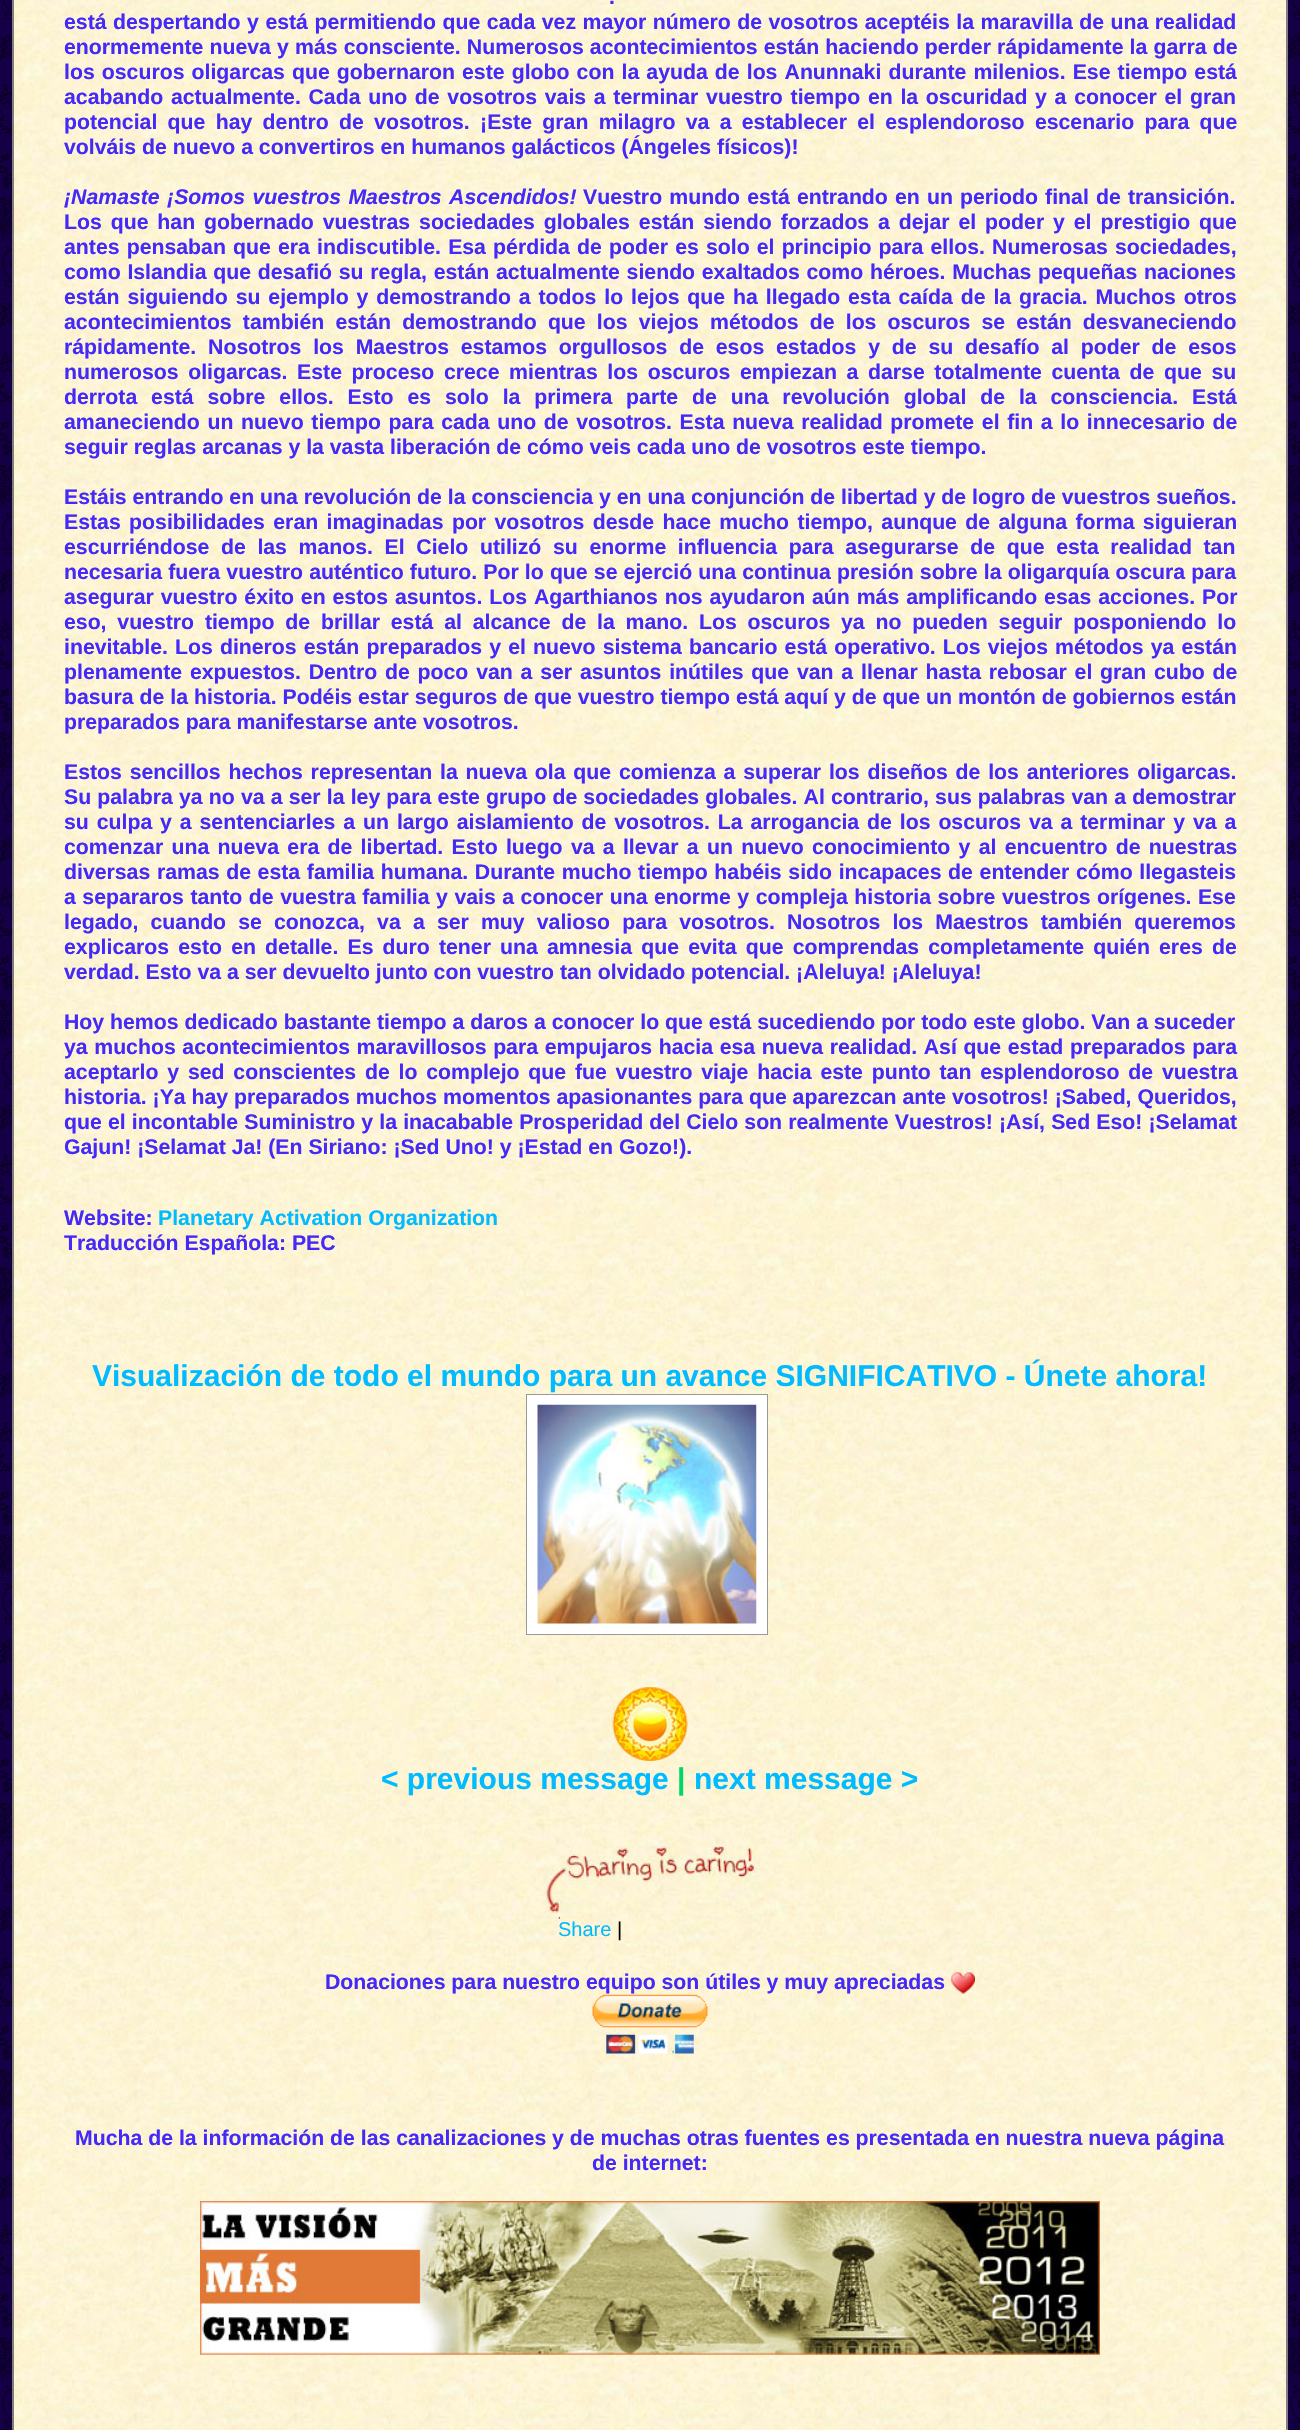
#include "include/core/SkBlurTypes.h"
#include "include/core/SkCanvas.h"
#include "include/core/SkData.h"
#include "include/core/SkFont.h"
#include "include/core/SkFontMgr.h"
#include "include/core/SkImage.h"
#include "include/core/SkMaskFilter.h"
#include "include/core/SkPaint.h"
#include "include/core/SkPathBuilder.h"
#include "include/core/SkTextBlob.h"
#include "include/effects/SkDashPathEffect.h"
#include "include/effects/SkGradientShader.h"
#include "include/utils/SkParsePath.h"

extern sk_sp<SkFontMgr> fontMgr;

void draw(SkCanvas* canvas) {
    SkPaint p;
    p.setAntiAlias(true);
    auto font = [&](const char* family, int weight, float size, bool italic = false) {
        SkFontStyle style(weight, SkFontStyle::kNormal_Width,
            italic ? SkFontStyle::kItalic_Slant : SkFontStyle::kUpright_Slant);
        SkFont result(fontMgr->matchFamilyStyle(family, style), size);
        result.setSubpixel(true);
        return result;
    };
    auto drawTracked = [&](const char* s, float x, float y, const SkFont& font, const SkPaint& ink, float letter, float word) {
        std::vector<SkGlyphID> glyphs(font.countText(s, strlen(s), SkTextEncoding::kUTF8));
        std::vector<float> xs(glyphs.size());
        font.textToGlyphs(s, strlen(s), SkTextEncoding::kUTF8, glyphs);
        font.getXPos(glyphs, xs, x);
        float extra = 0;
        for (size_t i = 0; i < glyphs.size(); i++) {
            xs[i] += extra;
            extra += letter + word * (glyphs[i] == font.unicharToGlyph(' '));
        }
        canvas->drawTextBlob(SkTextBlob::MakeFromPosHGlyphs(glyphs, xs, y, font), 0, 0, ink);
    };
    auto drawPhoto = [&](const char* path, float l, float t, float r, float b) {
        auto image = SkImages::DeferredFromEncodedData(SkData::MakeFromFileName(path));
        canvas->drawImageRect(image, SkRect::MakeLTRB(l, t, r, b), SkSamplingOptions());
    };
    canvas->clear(0xFF000000);
    drawPhoto("media/1.png", 0, 0, 13, 2430);
    p.setColor(0xFFFFF5DA);
    canvas->drawRect(SkRect::MakeLTRB(14, 0, 1288, 2430), p);
    drawPhoto("media/2.png", 12, 0, 1288, 2430);
    p.setColor(0xFF808080);
    canvas->drawRect(SkRect::MakeLTRB(1286, 0, 1287, 2430), p);
    canvas->drawRect(SkRect::MakeLTRB(13, 0, 14, 2430), p);
    auto font1 = font("Liberation Sans", 700, 21.25f);
    p.setColor(0xFF4429F9);
    drawTracked(".", 609, 4, font1, p, 0, 2.5f);
    drawTracked("está despertando y está permitiendo que cada vez mayor número de vosotros aceptéis la maravilla de una realidad", 64, 29, font1, p, 0, 0.6f);
    drawTracked("enormemente nueva y más consciente. Numerosos acontecimientos están haciendo perder rápidamente la garra de", 64, 54, font1, p, 0, 0.25f);
    drawTracked("los oscuros oligarcas que gobernaron este globo con la ayuda de los Anunnaki durante milenios. Ese tiempo está", 64, 79, font1, p, 0, 1.2f);
    drawTracked("acabando actualmente. Cada uno de vosotros vais a terminar vuestro tiempo en la oscuridad y a conocer el gran", 64, 104, font1, p, 0, 1.8f);
    drawTracked("potencial que hay dentro de vosotros. ¡Este gran milagro va a establecer el esplendoroso escenario para que", 64, 129, font1, p, 0, 4.4f);
    canvas->drawString("volváis de nuevo a convertiros en humanos galácticos (Ángeles físicos)!", 64, 154, font1, p);
    auto font2 = font("Liberation Sans", 700, 21.25f, true);
    drawTracked("¡Namaste ¡Somos vuestros Maestros Ascendidos!", 64, 204, font2, p, 0, 1.5f);
    drawTracked("Vuestro mundo está entrando en un periodo final de transición.", 583, 204, font1, p, 0, 1.25f);
    drawTracked("Los que han gobernado vuestras sociedades globales están siendo forzados a dejar el poder y el prestigio que", 64, 229, font1, p, 0, 3);
    drawTracked("antes pensaban que era indiscutible. Esa pérdida de poder es solo el principio para ellos. Numerosas sociedades,", 64, 254, font1, p, 0, 1.25f);
    drawTracked("como Islandia que desafió su regla, están actualmente siendo exaltados como héroes. Muchas pequeñas naciones", 64, 279, font1, p, 0, 0.8f);
    drawTracked("están siguiendo su ejemplo y demostrando a todos lo lejos que ha llegado esta caída de la gracia. Muchos otros", 64, 304, font1, p, 0, 2);
    drawTracked("acontecimientos también están demostrando que los viejos métodos de los oscuros se están desvaneciendo", 64, 329, font1, p, 0, 5.25f);
    drawTracked("rápidamente. Nosotros los Maestros estamos orgullosos de esos estados y de su desafío al poder de esos", 64, 354, font1, p, 0, 5.9f);
    drawTracked("numerosos oligarcas. Este proceso crece mientras los oscuros empiezan a darse totalmente cuenta de que su", 64, 379, font1, p, 0, 3.75f);
    drawTracked("derrota está sobre ellos. Esto es solo la primera parte de una revolución global de la consciencia. Está", 64, 404, font1, p, 0, 8);
    drawTracked("amaneciendo un nuevo tiempo para cada uno de vosotros. Esta nueva realidad promete el fin a lo innecesario de", 64, 429, font1, p, 0, 1.75f);
    canvas->drawString("seguir reglas arcanas y la vasta liberación de cómo veis cada uno de vosotros este tiempo.", 64, 454, font1, p);
    canvas->drawString("Estáis entrando en una revolución de la consciencia y en una conjunción de libertad y de logro de vuestros sueños.", 64, 504, font1, p);
    drawTracked("Estas posibilidades eran imaginadas por vosotros desde hace mucho tiempo, aunque de alguna forma siguieran", 64, 529, font1, p, 0, 2.5f);
    drawTracked("escurriéndose de las manos. El Cielo utilizó su enorme influencia para asegurarse de que esta realidad tan", 64, 554, font1, p, 0, 5.75f);
    drawTracked("necesaria fuera vuestro auténtico futuro. Por lo que se ejerció una continua presión sobre la oligarquía oscura para", 64, 579, font1, p, 0, 0.25f);
    drawTracked("asegurar vuestro éxito en estos asuntos. Los Agarthianos nos ayudaron aún más amplificando esas acciones. Por", 64, 604, font1, p, 0, 1);
    drawTracked("eso, vuestro tiempo de brillar está al alcance de la mano. Los oscuros ya no pueden seguir posponiendo lo", 64, 629, font1, p, 0, 4.9f);
    drawTracked("inevitable. Los dineros están preparados y el nuevo sistema bancario está operativo. Los viejos métodos ya están", 64, 654, font1, p, 0, 1.2f);
    drawTracked("plenamente expuestos. Dentro de poco van a ser asuntos inútiles que van a llenar hasta rebosar el gran cubo de", 64, 679, font1, p, 0, 1.9f);
    canvas->drawString("basura de la historia. Podéis estar seguros de que vuestro tiempo está aquí y de que un montón de gobiernos están", 64, 704, font1, p);
    canvas->drawString("preparados para manifestarse ante vosotros.", 64, 729, font1, p);
    drawTracked("Estos sencillos hechos representan la nueva ola que comienza a superar los diseños de los anteriores oligarcas.", 64, 779, font1, p, 0, 1.9f);
    drawTracked("Su palabra ya no va a ser la ley para este grupo de sociedades globales. Al contrario, sus palabras van a demostrar", 64, 804, font1, p, 0, 0.25f);
    drawTracked("su culpa y a sentenciarles a un largo aislamiento de vosotros. La arrogancia de los oscuros va a terminar y va a", 64, 829, font1, p, 0, 2);
    drawTracked("comenzar una nueva era de libertad. Esto luego va a llevar a un nuevo conocimiento y al encuentro de nuestras", 64, 854, font1, p, 0, 2.4f);
    drawTracked("diversas ramas de esta familia humana. Durante mucho tiempo habéis sido incapaces de entender cómo llegasteis", 64, 879, font1, p, 0, 0.75f);
    drawTracked("a separaros tanto de vuestra familia y vais a conocer una enorme y compleja historia sobre vuestros orígenes. Ese", 64, 904, font1, p, 0, 0.6f);
    drawTracked("legado, cuando se conozca, va a ser muy valioso para vosotros. Nosotros los Maestros también queremos", 64, 929, font1, p, 0, 6.25f);
    drawTracked("explicaros esto en detalle. Es duro tener una amnesia que evita que comprendas completamente quién eres de", 64, 954, font1, p, 0, 3.25f);
    canvas->drawString("verdad. Esto va a ser devuelto junto con vuestro tan olvidado potencial. ¡Aleluya! ¡Aleluya!", 64, 979, font1, p);
    canvas->drawString("Hoy hemos dedicado bastante tiempo a daros a conocer lo que está sucediendo por todo este globo. Van a suceder", 64, 1029, font1, p);
    drawTracked("ya muchos acontecimientos maravillosos para empujaros hacia esa nueva realidad. Así que estad preparados para", 64, 1054, font1, p, 0, 0.7f);
    drawTracked("aceptarlo y sed conscientes de lo complejo que fue vuestro viaje hacia este punto tan esplendoroso de vuestra", 64, 1079, font1, p, 0, 2.9f);
    canvas->drawString("historia. ¡Ya hay preparados muchos momentos apasionantes para que aparezcan ante vosotros! ¡Sabed, Queridos,", 64, 1104, font1, p);
    drawTracked("que el incontable Suministro y la inacabable Prosperidad del Cielo son realmente Vuestros! ¡Así, Sed Eso! ¡Selamat", 64, 1129, font1, p, 0, 0.25f);
    canvas->drawString("Gajun! ¡Selamat Ja! (En Siriano: ¡Sed Uno! y ¡Estad en Gozo!).", 64, 1154, font1, p);
    canvas->drawString("Website:", 64, 1225, font1, p);
    p.setColor(0xFF00BBFF);
    canvas->drawString("Planetary Activation Organization", 158, 1225, font1, p);
    p.setColor(0xFF4429F9);
    canvas->drawString("Traducción Española: PEC", 64, 1250, font1, p);
    auto font3 = font("Liberation Sans", 700, 30);
    p.setColor(0xFF00BBFF);
    canvas->drawString("Visualización de todo el mundo para un avance SIGNIFICATIVO - Únete ahora!", 92, 1386, font3, p);
    p.setColor(0xFFFFFFFF);
    canvas->drawRect(SkRect::MakeLTRB(526.5f, 1394.5f, 767.5f, 1634.5f), p);
    p.setStyle(SkPaint::kStroke_Style);
    p.setStrokeWidth(1);
    p.setColor(0xFF999999);
    canvas->drawRect(SkRect::MakeLTRB(526.5f, 1394.5f, 767.5f, 1634.5f), p);
    drawPhoto("media/3.png", 537, 1404, 757, 1624);
    drawPhoto("media/4.png", 612, 1687, 688, 1761);
    p.setStyle(SkPaint::kFill_Style);
    p.setColor(0xFF00BBFF);
    canvas->drawString("< previous message", 381, 1789, font3, p);
    p.setColor(0xFF00D769);
    canvas->drawString("|", 677, 1789, font3, p);
    p.setColor(0xFF00BBFF);
    canvas->drawString("next message >", 694, 1789, font3, p);
    drawPhoto("media/5.png", 536, 1846, 764, 1914);
    drawPhoto("media/6.png", 558, 1917, 560, 1919);
    auto font4 = font("Liberation Sans", 400, 20);
    canvas->drawString("Share", 558, 1936, font4, p);
    p.setColor(0xFF000000);
    canvas->drawString("|", 617, 1936, font4, p);
    p.setColor(0xFF4429F9);
    canvas->drawString("Donaciones para nuestro equipo son útiles y muy apreciadas", 325, 1989, font1, p);
    drawPhoto("media/7.png", 951, 1972, 975, 1994);
    drawPhoto("media/8.png", 592, 1994, 708, 2054);
    canvas->drawString("Mucha de la información de las canalizaciones y de muchas otras fuentes es presentada en nuestra nueva página", 75, 2145, font1, p);
    canvas->drawString("de internet:", 592, 2170, font1, p);
    drawPhoto("media/9.png", 200, 2201, 1100, 2355);
    drawPhoto("media/10.png", 1287, 0, 1300, 2430);
}
